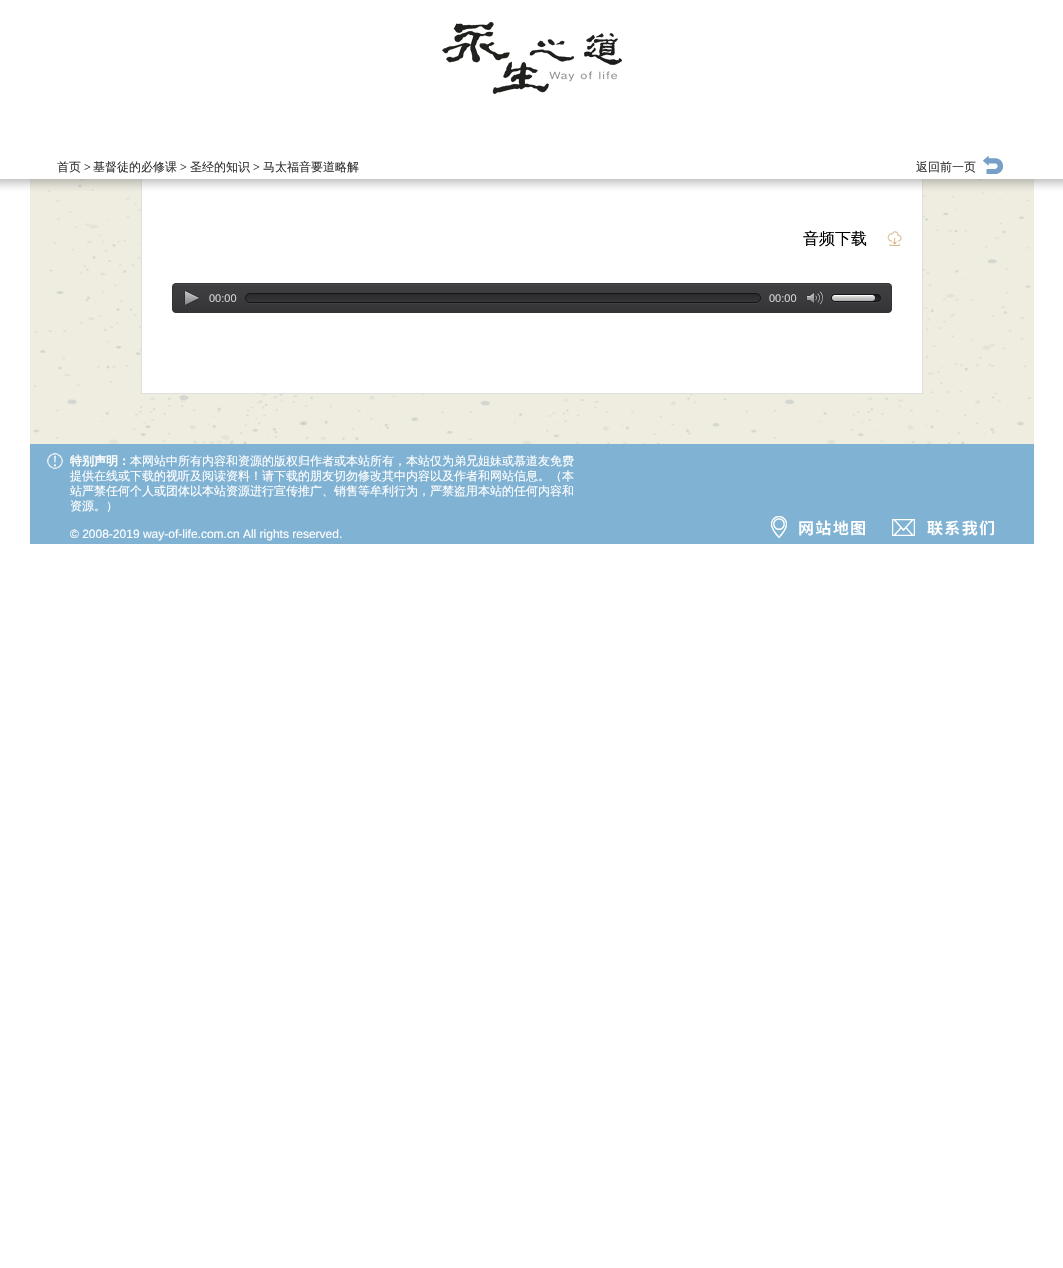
#include "include/core/SkBlurTypes.h"
#include "include/core/SkCanvas.h"
#include "include/core/SkData.h"
#include "include/core/SkFont.h"
#include "include/core/SkFontMgr.h"
#include "include/core/SkImage.h"
#include "include/core/SkMaskFilter.h"
#include "include/core/SkPaint.h"
#include "include/core/SkPathBuilder.h"
#include "include/core/SkTextBlob.h"
#include "include/effects/SkDashPathEffect.h"
#include "include/effects/SkGradientShader.h"
#include "include/utils/SkParsePath.h"

extern sk_sp<SkFontMgr> fontMgr;

void draw(SkCanvas* canvas) {
    SkPaint p;
    p.setAntiAlias(true);
    auto font = [&](const char* family, int weight, float size, bool italic = false) {
        SkFontStyle style(weight, SkFontStyle::kNormal_Width,
            italic ? SkFontStyle::kItalic_Slant : SkFontStyle::kUpright_Slant);
        SkFont result(fontMgr->matchFamilyStyle(family, style), size);
        result.setSubpixel(true);
        return result;
    };
    auto drawPhoto = [&](const char* path, float l, float t, float r, float b) {
        auto image = SkImages::DeferredFromEncodedData(SkData::MakeFromFileName(path));
        canvas->drawImageRect(image, SkRect::MakeLTRB(l, t, r, b), SkSamplingOptions());
    };
    canvas->clear(0xFFFFFFFF);
    drawPhoto("media/1.png", 442, 22, 622, 94);
    auto font1 = font("WenQuanYi Zen Hei", 500, 12);
    p.setColor(0xFF333333);
    canvas->drawString("首页", 57, 171, font1, p);
    auto font2 = font("Liberation Serif", 400, 12);
    canvas->drawString(">", 84, 171, font2, p);
    canvas->drawString("基督徒的必修课", 93, 171, font1, p);
    canvas->drawString(">", 180, 171, font2, p);
    canvas->drawString("圣经的知识", 190, 171, font1, p);
    canvas->drawString(">", 253, 171, font2, p);
    canvas->drawString("马太福音要道略解", 263, 171, font1, p);
    canvas->drawString("返回前一页", 916, 171, font1, p);
    drawPhoto("media/2.png", 983, 156, 1003, 174);
    p.setColor(0xFFEFEDE0);
    canvas->drawRect(SkRect::MakeLTRB(30, 179, 1034, 444), p);
    drawPhoto("media/4.png", 30, 179, 1034, 444);
    {
        const struct { float l, t, r, b; SkColor color; } items[] = {
            {142, 179, 922, 393, 0xFFFFFFFF},
            {922, 179, 923, 394, 0xFFDFDFDF},
            {141, 393, 923, 394, 0xFFDFDFDF},
            {141, 179, 142, 394, 0xFFDFDFDF},
        };
        for (auto [l, t, r, b, color] : items) {
            p.setColor(color);
            canvas->drawRect(SkRect::MakeLTRB(l, t, r, b), p);
        }
    }
    drawPhoto("media/3.png", 0, 179, 1063, 191);
    auto font3 = font("WenQuanYi Zen Hei", 500, 16);
    p.setColor(0xFF000000);
    canvas->drawString("音频下载", 803, 244, font3, p);
    drawPhoto("media/5.png", 887, 231, 902, 246);
    drawPhoto("media/6.png", 172, 283, 180, 313);
    drawPhoto("media/7.png", 180, 283, 884, 313);
    drawPhoto("media/8.png", 884, 283, 892, 313);
    drawPhoto("media/9.png", 184, 290, 199, 306);
    auto font4 = font("Liberation Sans", 400, 11);
    p.setColor(0xFFD2D2D2);
    canvas->drawString("00:00", 209, 302, font4, p);
    drawPhoto("media/10.png", 245, 293, 250, 304);
    drawPhoto("media/11.png", 250, 293, 756, 304);
    drawPhoto("media/12.png", 756, 293, 761, 304);
    canvas->drawString("00:00", 769, 302, font4, p);
    drawPhoto("media/13.png", 806, 291, 824, 305);
    drawPhoto("media/14.png", 831, 294, 835, 303);
    drawPhoto("media/15.png", 835, 294, 877, 303);
    drawPhoto("media/16.png", 877, 294, 881, 303);
    drawPhoto("media/17.png", 832, 295, 835, 301);
    drawPhoto("media/18.png", 835, 295, 872, 301);
    drawPhoto("media/19.png", 872, 295, 875, 301);
    p.setColor(0xFF80B2D3);
    canvas->drawRect(SkRect::MakeLTRB(30, 444, 1034, 544), p);
    drawPhoto("media/20.png", 47, 453, 63, 469);
    auto font5 = font("WenQuanYi Zen Hei", 700, 12);
    p.setColor(0xFFFFFFFF);
    canvas->drawString("特别声明：", 70, 465, font5, p);
    {
        const struct { const char* s; float x, y; } items[] = {
            {"本网站中所有内容和资源的版权归作者或本站所有，本站仅为弟兄姐妹或慕道友免费", 130, 465},
            {"提供在线或下载的视听及阅读资料！请下载的朋友切勿修改其中内容以及作者和网站信息。（本", 70, 480},
            {"站严禁任何个人或团体以本站资源进行宣传推广、销售等牟利行为，严禁盗用本站的任何内容和", 70, 495},
            {"资源。）", 70, 510},
        };
        for (auto [s, x, y] : items) {
            canvas->drawString(s, x, y, font1, p);
        }
    }
    auto font6 = font("Liberation Sans", 400, 12);
    canvas->drawString("© 2008-2019 way-of-life.com.cn All rights reserved.", 70, 538, font6, p);
    drawPhoto("media/21.png", 771, 516, 865, 538);
    drawPhoto("media/22.png", 892, 519, 994, 536);
}
